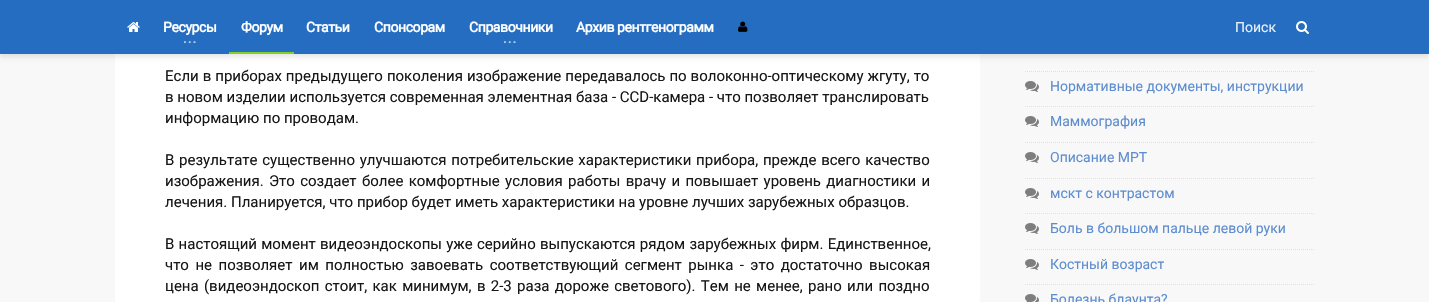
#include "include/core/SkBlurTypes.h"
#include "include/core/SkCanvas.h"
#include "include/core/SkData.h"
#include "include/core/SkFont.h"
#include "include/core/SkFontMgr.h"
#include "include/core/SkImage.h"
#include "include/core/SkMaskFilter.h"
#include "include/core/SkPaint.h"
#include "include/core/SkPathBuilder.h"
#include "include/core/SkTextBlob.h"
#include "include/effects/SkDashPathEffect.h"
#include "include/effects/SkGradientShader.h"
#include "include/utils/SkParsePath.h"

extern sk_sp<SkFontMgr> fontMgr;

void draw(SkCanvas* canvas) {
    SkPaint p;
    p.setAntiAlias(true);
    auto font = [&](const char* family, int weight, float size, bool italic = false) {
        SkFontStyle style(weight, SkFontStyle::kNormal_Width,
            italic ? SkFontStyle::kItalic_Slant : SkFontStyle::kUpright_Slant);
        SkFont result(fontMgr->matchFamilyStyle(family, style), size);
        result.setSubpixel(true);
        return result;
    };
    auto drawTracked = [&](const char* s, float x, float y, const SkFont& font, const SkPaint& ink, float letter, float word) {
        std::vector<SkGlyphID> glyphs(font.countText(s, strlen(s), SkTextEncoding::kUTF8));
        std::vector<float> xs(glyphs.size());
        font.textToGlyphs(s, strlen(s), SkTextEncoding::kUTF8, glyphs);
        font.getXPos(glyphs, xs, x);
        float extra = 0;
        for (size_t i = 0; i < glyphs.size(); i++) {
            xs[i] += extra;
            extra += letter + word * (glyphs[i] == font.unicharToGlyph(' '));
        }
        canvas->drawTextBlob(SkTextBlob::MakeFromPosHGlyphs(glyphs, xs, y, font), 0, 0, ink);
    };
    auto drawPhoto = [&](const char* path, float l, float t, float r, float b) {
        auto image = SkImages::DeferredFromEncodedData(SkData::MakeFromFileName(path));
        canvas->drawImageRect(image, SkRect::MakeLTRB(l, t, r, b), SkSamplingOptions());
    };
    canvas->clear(0xFFF8F8F8);
    p.setColor(0xFFFFFFFF);
    canvas->drawRect(SkRect::MakeLTRB(115, 54, 980, 302), p);
    p.setColor(0x1A000000);
    p.setMaskFilter(SkMaskFilter::MakeBlur(kNormal_SkBlurStyle, 2.5f));
    canvas->drawRect(SkRect::MakeLTRB(0, 3, 1429, 57), p);
    p.setMaskFilter(nullptr);
    p.setColor(0xFF256DC1);
    canvas->drawRect(SkRect::MakeLTRB(0, 0, 1429, 54), p);
    drawPhoto("media/1.png", 127, 22, 140, 32);
    auto font1 = font("Roboto", 700, 14);
    p.setColor(0xFFFFFFFF);
    drawTracked("Ресурсы", 163, 32, font1, p, -0.4f, 0);
    p.setColor(0xFFBED3EC);
    drawTracked("...", 183, 43, font1, p, 1, 0);
    p.setColor(0xFF82CF26);
    canvas->drawRect(SkRect::MakeLTRB(229, 52, 294, 54), p);
    p.setColor(0xFFFFFFFF);
    {
        const struct { const char* s; float x, y; } items[] = {
            {"Форум", 241, 32},
            {"Статьи", 306, 32},
            {"Спонсорам", 374, 32},
            {"Справочники", 469, 32},
        };
        for (auto [s, x, y] : items) {
            drawTracked(s, x, y, font1, p, -0.4f, 0);
        }
    }
    p.setColor(0xFFBED3EC);
    drawTracked("...", 503, 43, font1, p, 1, 0);
    p.setColor(0xFFFFFFFF);
    drawTracked("Архив рентгенограмм", 576, 32, font1, p, -0.4f, 0);
    drawPhoto("media/2.png", 738, 21, 748, 32);
    auto font2 = font("Roboto", 400, 14);
    p.setColor(0xFFE9F0F9);
    canvas->drawString("Поиск", 1235, 32, font2, p);
    drawPhoto("media/3.png", 1296, 21, 1309, 34);
    auto font3 = font("Roboto", 400, 15);
    p.setColor(0xFF171717);
    drawTracked("Если в приборах предыдущего поколения изображение передавалось по волоконно-оптическому жгуту, то", 165, 81, font3, p, 0, 0.25f);
    canvas->drawString("в новом изделии используется современная элементная база - CCD-камера - что позволяет транслировать", 165, 102, font3, p);
    canvas->drawString("информацию по проводам.", 165, 123, font3, p);
    drawTracked("В результате существенно улучшаются потребительские характеристики прибора, прежде всего качество", 165, 165, font3, p, 0, 1);
    drawTracked("изображения. Это создает более комфортные условия работы врачу и повышает уровень диагностики и", 165, 186, font3, p, 0, 1.6f);
    canvas->drawString("лечения. Планируется, что прибор будет иметь характеристики на уровне лучших зарубежных образцов.", 165, 207, font3, p);
    drawTracked("В настоящий момент видеоэндоскопы уже серийно выпускаются рядом зарубежных фирм. Единственное,", 165, 249, font3, p, 0, 0.5f);
    drawTracked("что не позволяет им полностью завоевать соответствующий сегмент рынка - это достаточно высокая", 165, 270, font3, p, 0, 2.75f);
    drawTracked("цена (видеоэндоскоп стоит, как минимум, в 2-3 раза дороже светового). Тем не менее, рано или поздно", 165, 291, font3, p, 0, 1.6f);
    p.setStyle(SkPaint::kStroke_Style);
    p.setStrokeWidth(1);
    p.setColor(0xFFE0E0E0);
    p.setPathEffect(SkDashPathEffect::Make({{1, 1}}, 0));
    canvas->drawPath(SkPathBuilder().moveTo(1025, 71.5f).lineTo(1315, 71.5f).detach(), p);
    p.setPathEffect(nullptr);
    p.setPathEffect(SkDashPathEffect::Make({{1, 1}}, 0));
    canvas->drawPath(SkPathBuilder().moveTo(1025, 106.5f).lineTo(1315, 106.5f).detach(), p);
    p.setPathEffect(nullptr);
    drawPhoto("media/4.png", 1025, 81, 1039, 92);
    p.setStyle(SkPaint::kFill_Style);
    p.setColor(0xFF5E8DCF);
    canvas->drawString("Нормативные документы, инструкции", 1050, 91, font2, p);
    p.setStyle(SkPaint::kStroke_Style);
    p.setColor(0xFFE0E0E0);
    p.setPathEffect(SkDashPathEffect::Make({{1, 1}}, 0));
    canvas->drawPath(SkPathBuilder().moveTo(1025, 142.5f).lineTo(1315, 142.5f).detach(), p);
    p.setPathEffect(nullptr);
    drawPhoto("media/4.png", 1025, 116, 1039, 127);
    p.setStyle(SkPaint::kFill_Style);
    p.setColor(0xFF5E8DCF);
    canvas->drawString("Маммография", 1050, 126, font2, p);
    p.setStyle(SkPaint::kStroke_Style);
    p.setColor(0xFFE0E0E0);
    p.setPathEffect(SkDashPathEffect::Make({{1, 1}}, 0));
    canvas->drawPath(SkPathBuilder().moveTo(1025, 178.5f).lineTo(1315, 178.5f).detach(), p);
    p.setPathEffect(nullptr);
    drawPhoto("media/4.png", 1025, 152, 1039, 163);
    p.setStyle(SkPaint::kFill_Style);
    p.setColor(0xFF5E8DCF);
    canvas->drawString("Описание МРТ", 1050, 162, font2, p);
    p.setStyle(SkPaint::kStroke_Style);
    p.setColor(0xFFE0E0E0);
    p.setPathEffect(SkDashPathEffect::Make({{1, 1}}, 0));
    canvas->drawPath(SkPathBuilder().moveTo(1025, 213.5f).lineTo(1315, 213.5f).detach(), p);
    p.setPathEffect(nullptr);
    drawPhoto("media/4.png", 1025, 188, 1039, 199);
    p.setStyle(SkPaint::kFill_Style);
    p.setColor(0xFF5E8DCF);
    canvas->drawString("мскт с контрастом", 1050, 198, font2, p);
    p.setStyle(SkPaint::kStroke_Style);
    p.setColor(0xFFE0E0E0);
    p.setPathEffect(SkDashPathEffect::Make({{1, 1}}, 0));
    canvas->drawPath(SkPathBuilder().moveTo(1025, 249.5f).lineTo(1315, 249.5f).detach(), p);
    p.setPathEffect(nullptr);
    drawPhoto("media/4.png", 1025, 223, 1039, 234);
    p.setStyle(SkPaint::kFill_Style);
    p.setColor(0xFF5E8DCF);
    canvas->drawString("Боль в большом пальце левой руки", 1050, 233, font2, p);
    p.setStyle(SkPaint::kStroke_Style);
    p.setColor(0xFFE0E0E0);
    p.setPathEffect(SkDashPathEffect::Make({{1, 1}}, 0));
    canvas->drawPath(SkPathBuilder().moveTo(1025, 284.5f).lineTo(1315, 284.5f).detach(), p);
    p.setPathEffect(nullptr);
    drawPhoto("media/4.png", 1025, 259, 1039, 270);
    p.setStyle(SkPaint::kFill_Style);
    p.setColor(0xFF5E8DCF);
    canvas->drawString("Костный возраст", 1050, 269, font2, p);
    drawPhoto("media/5.png", 1025, 294, 1039, 302);
    canvas->drawString("Болезнь блаунта?", 1050, 304, font2, p);
}
